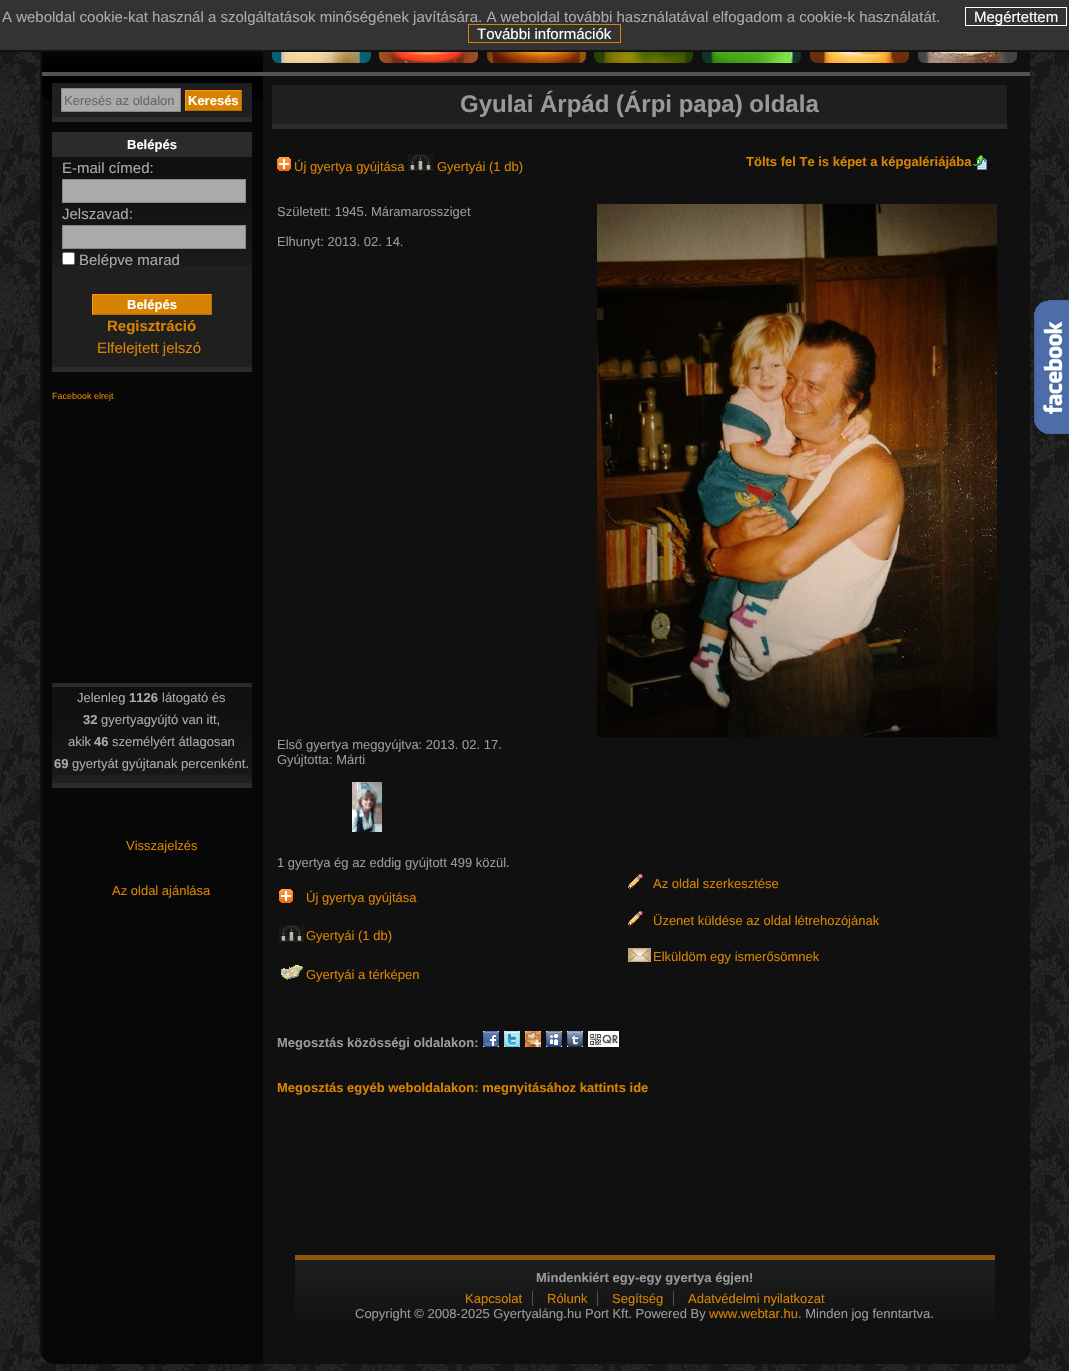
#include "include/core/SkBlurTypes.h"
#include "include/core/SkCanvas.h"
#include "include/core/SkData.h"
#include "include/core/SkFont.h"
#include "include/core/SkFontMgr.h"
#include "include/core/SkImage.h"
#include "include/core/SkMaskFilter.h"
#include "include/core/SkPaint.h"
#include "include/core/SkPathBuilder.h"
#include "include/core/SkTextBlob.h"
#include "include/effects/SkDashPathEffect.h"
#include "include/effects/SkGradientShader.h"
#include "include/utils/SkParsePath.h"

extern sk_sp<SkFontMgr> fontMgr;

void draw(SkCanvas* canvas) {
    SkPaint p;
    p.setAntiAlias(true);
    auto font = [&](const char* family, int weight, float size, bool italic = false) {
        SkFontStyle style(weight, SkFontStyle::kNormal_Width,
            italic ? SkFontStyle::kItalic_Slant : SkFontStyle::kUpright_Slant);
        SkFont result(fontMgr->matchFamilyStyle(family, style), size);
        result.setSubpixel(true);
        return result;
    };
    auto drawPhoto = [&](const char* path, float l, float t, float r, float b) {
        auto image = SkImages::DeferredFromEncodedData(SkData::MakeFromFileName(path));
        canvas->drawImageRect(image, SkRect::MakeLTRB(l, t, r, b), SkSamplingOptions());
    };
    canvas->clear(0xFFFFFFFF);
    drawPhoto("media/1.png", 0, 52, 1069, 1371);
    drawPhoto("media/2.png", 40, 52, 1030, 1352);
    drawPhoto("media/3.png", 42, 52, 1030, 101);
    {
        const SkColor colors[] = {0xFF083744, 0xFF09717D};
        const float stops[] = {0, 1};
        SkMatrix m = SkMatrix::Translate(322, 63).preScale(70, 140);
        p.setShader(SkGradientShader::MakeRadial({0, 0}, 1, colors, stops, 2, SkTileMode::kClamp, 0, &m));
        p.setAlpha(255);
    }
    canvas->drawRoundRect(SkRect::MakeLTRB(272, -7, 371, 63), 7, 7, p);
    {
        const SkColor colors[] = {0xFF652D0A, 0xFFB75F31};
        const float stops[] = {0, 1};
        SkMatrix m = SkMatrix::Translate(429, 63).preScale(70, 140);
        p.setShader(SkGradientShader::MakeRadial({0, 0}, 1, colors, stops, 2, SkTileMode::kClamp, 0, &m));
        p.setAlpha(255);
    }
    canvas->drawRoundRect(SkRect::MakeLTRB(379, -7, 478, 63), 7, 7, p);
    {
        const SkColor colors[] = {0xFF652D0A, 0xFF92550F};
        const float stops[] = {0, 1};
        const SkPoint ends[] = {{487, -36}, {586, 63}};
        p.setShader(SkGradientShader::MakeLinear(ends, colors, stops, 2, SkTileMode::kClamp));
        p.setAlpha(255);
    }
    canvas->drawRoundRect(SkRect::MakeLTRB(487, -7, 586, 63), 7, 7, p);
    {
        const SkColor colors[] = {0xFF233B06, 0xFF3F7305};
        const float stops[] = {0, 1};
        const SkPoint ends[] = {{644, 63}, {644, -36}};
        p.setShader(SkGradientShader::MakeLinear(ends, colors, stops, 2, SkTileMode::kClamp));
        p.setAlpha(255);
    }
    canvas->drawRoundRect(SkRect::MakeLTRB(594, -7, 693, 63), 7, 7, p);
    {
        const SkColor colors[] = {0xFF0F3022, 0xFF195C40};
        const float stops[] = {0, 1};
        const SkPoint ends[] = {{752, 63}, {752, -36}};
        p.setShader(SkGradientShader::MakeLinear(ends, colors, stops, 2, SkTileMode::kClamp));
        p.setAlpha(255);
    }
    canvas->drawRoundRect(SkRect::MakeLTRB(702, -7, 801, 63), 7, 7, p);
    {
        const SkColor colors[] = {0xFF662A09, 0xFFAB6B06};
        const float stops[] = {0, 1};
        const SkPoint ends[] = {{860, 63}, {860, -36}};
        p.setShader(SkGradientShader::MakeLinear(ends, colors, stops, 2, SkTileMode::kClamp));
        p.setAlpha(255);
    }
    canvas->drawRoundRect(SkRect::MakeLTRB(810, -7, 909, 63), 7, 7, p);
    {
        const SkColor colors[] = {0xFF414141, 0xFF595959};
        const float stops[] = {0, 1};
        const SkPoint ends[] = {{968, 63}, {968, -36}};
        p.setShader(SkGradientShader::MakeLinear(ends, colors, stops, 2, SkTileMode::kClamp));
        p.setAlpha(255);
    }
    canvas->drawRoundRect(SkRect::MakeLTRB(918, -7, 1017, 63), 7, 7, p);
    p.setShader(nullptr);
    p.setColor(0xFF333333);
    canvas->drawRect(SkRect::MakeLTRB(0, 0, 1069, 50), p);
    p.setColor(0xFF111111);
    canvas->drawRect(SkRect::MakeLTRB(0, 50, 1069, 52), p);
    auto font1 = font("Liberation Sans", 400, 15);
    p.setColor(0xFFAAAAAA);
    canvas->drawString("A weboldal cookie-kat használ a szolgáltatások minőségének javítására. A weboldal további használatával elfogadom a cookie-k használatát.", 2, 22, font1, p);
    p.setStyle(SkPaint::kStroke_Style);
    p.setStrokeWidth(1);
    p.setColor(0xFFFFFFFF);
    canvas->drawRect(SkRect::MakeLTRB(965.5f, 7.5f, 1066.5f, 25.5f), p);
    p.setStyle(SkPaint::kFill_Style);
    canvas->drawString("Megértettem", 974, 22, font1, p);
    p.setStyle(SkPaint::kStroke_Style);
    p.setColor(0xFFD78301);
    canvas->drawRect(SkRect::MakeLTRB(468.5f, 24.5f, 620.5f, 42.5f), p);
    p.setStyle(SkPaint::kFill_Style);
    p.setColor(0xFFFFFFFF);
    canvas->drawString("További információk", 477, 39, font1, p);
    drawPhoto("media/4.png", 272, 52, 368, 63);
    drawPhoto("media/5.png", 387, 52, 472, 63);
    drawPhoto("media/6.png", 487, 52, 586, 63);
    drawPhoto("media/7.png", 596, 52, 693, 63);
    drawPhoto("media/8.png", 703, 52, 800, 63);
    drawPhoto("media/9.png", 819, 52, 899, 63);
    drawPhoto("media/10.png", 920, 52, 1008, 63);
    p.setColor(0xFF1F1F1F);
    canvas->drawRect(SkRect::MakeLTRB(52, 83, 252, 117), p);
    p.setColor(0xFF2B2B2B);
    canvas->drawRect(SkRect::MakeLTRB(52, 117, 252, 122), p);
    p.setColor(0xFFAAAAAA);
    canvas->drawRect(SkRect::MakeLTRB(61.5f, 88.5f, 180.5f, 111.5f), p);
    p.setStyle(SkPaint::kStroke_Style);
    p.setColor(0xFF888888);
    canvas->drawRect(SkRect::MakeLTRB(61.5f, 88.5f, 180.5f, 111.5f), p);
    auto font2 = font("Liberation Sans", 400, 13);
    p.setStyle(SkPaint::kFill_Style);
    p.setColor(0xFF666666);
    canvas->drawString("Keresés az oldalon", 64, 105, font2, p);
    p.setColor(0xFFD78301);
    canvas->drawRoundRect(SkRect::MakeLTRB(185, 90, 242, 111), 0.5f, 0.5f, p);
    p.setColor(0xFFFF9900);
    canvas->drawPath(SkPathBuilder().moveTo(185, 90).lineTo(186, 91).lineTo(241, 91).lineTo(242, 90).close().detach(), p);
    p.setColor(0xFFB66F00);
    canvas->drawPath(SkPathBuilder().moveTo(242, 90).lineTo(241, 91).lineTo(241, 110).lineTo(242, 111).close().detach(), p);
    canvas->drawPath(SkPathBuilder().moveTo(242, 111).lineTo(241, 110).lineTo(186, 110).lineTo(185, 111).close().detach(), p);
    p.setColor(0xFFFF9900);
    canvas->drawPath(SkPathBuilder().moveTo(185, 90).lineTo(185, 111).lineTo(186, 110).lineTo(186, 91).close().detach(), p);
    auto font3 = font("Liberation Sans", 700, 13);
    p.setColor(0xFFFFFFFF);
    canvas->drawString("Keresés", 188, 105, font3, p);
    p.setColor(0xFF2B2B2B);
    canvas->drawRect(SkRect::MakeLTRB(52, 132, 252, 157), p);
    p.setColor(0xFFFFFFFF);
    canvas->drawString("Belépés", 127, 149, font3, p);
    p.setColor(0xFF1F1F1F);
    canvas->drawRect(SkRect::MakeLTRB(52, 266, 252, 367), p);
    drawPhoto("media/11.png", 52, 157, 252, 266);
    p.setColor(0xFFAAAAAA);
    canvas->drawString("E-mail címed:", 62, 173, font1, p);
    canvas->drawRect(SkRect::MakeLTRB(62.5f, 179.5f, 245.5f, 202.5f), p);
    p.setStyle(SkPaint::kStroke_Style);
    p.setColor(0xFF888888);
    canvas->drawRect(SkRect::MakeLTRB(62.5f, 179.5f, 245.5f, 202.5f), p);
    p.setStyle(SkPaint::kFill_Style);
    p.setColor(0xFFAAAAAA);
    canvas->drawString("Jelszavad:", 62, 219, font1, p);
    canvas->drawRect(SkRect::MakeLTRB(62.5f, 225.5f, 245.5f, 248.5f), p);
    p.setStyle(SkPaint::kStroke_Style);
    p.setColor(0xFF888888);
    canvas->drawRect(SkRect::MakeLTRB(62.5f, 225.5f, 245.5f, 248.5f), p);
    p.setStyle(SkPaint::kFill_Style);
    p.setColor(0xFFFFFFFF);
    canvas->drawRoundRect(SkRect::MakeLTRB(62.5f, 252.5f, 74.5f, 264.5f), 1.5f, 1.5f, p);
    p.setStyle(SkPaint::kStroke_Style);
    p.setColor(0xFF767676);
    canvas->drawRoundRect(SkRect::MakeLTRB(62.5f, 252.5f, 74.5f, 264.5f), 1.5f, 1.5f, p);
    p.setStyle(SkPaint::kFill_Style);
    p.setColor(0xFFAAAAAA);
    canvas->drawString("Belépve marad", 79, 265, font1, p);
    p.setColor(0xFFD78301);
    canvas->drawRoundRect(SkRect::MakeLTRB(92, 294, 212, 315), 0.5f, 0.5f, p);
    p.setColor(0xFFFF9900);
    canvas->drawPath(SkPathBuilder().moveTo(92, 294).lineTo(93, 295).lineTo(211, 295).lineTo(212, 294).close().detach(), p);
    p.setColor(0xFFB66F00);
    canvas->drawPath(SkPathBuilder().moveTo(212, 294).lineTo(211, 295).lineTo(211, 314).lineTo(212, 315).close().detach(), p);
    canvas->drawPath(SkPathBuilder().moveTo(212, 315).lineTo(211, 314).lineTo(93, 314).lineTo(92, 315).close().detach(), p);
    p.setColor(0xFFFF9900);
    canvas->drawPath(SkPathBuilder().moveTo(92, 294).lineTo(92, 315).lineTo(93, 314).lineTo(93, 295).close().detach(), p);
    p.setColor(0xFFFFFFFF);
    canvas->drawString("Belépés", 127, 309, font3, p);
    auto font4 = font("Liberation Sans", 700, 15);
    p.setColor(0xFFD78301);
    canvas->drawString("Regisztráció", 107, 331, font4, p);
    canvas->drawString("Elfelejtett jelszó", 97, 353, font1, p);
    p.setColor(0xFF2B2B2B);
    canvas->drawRect(SkRect::MakeLTRB(52, 367, 252, 372), p);
    auto font5 = font("Liberation Sans", 400, 9);
    p.setColor(0xFFD78301);
    canvas->drawString("Facebook elrejt", 52, 399, font5, p);
    p.setColor(0xFF2B2B2B);
    canvas->drawRect(SkRect::MakeLTRB(52, 683, 252, 687), p);
    drawPhoto("media/12.png", 52, 687, 252, 775);
    p.setColor(0xFFAAAAAA);
    canvas->drawString("Jelenleg", 77, 702, font2, p);
    canvas->drawString("1126", 129, 702, font3, p);
    canvas->drawString("látogató és", 162, 702, font2, p);
    canvas->drawString("32", 83, 724, font3, p);
    canvas->drawString("gyertyagyújtó van itt,", 101, 724, font2, p);
    canvas->drawString("akik", 68, 746, font2, p);
    canvas->drawString("46", 94, 746, font3, p);
    canvas->drawString("személyért átlagosan", 112, 746, font2, p);
    canvas->drawString("69", 54, 768, font3, p);
    canvas->drawString("gyertyát gyújtanak percenként.", 72, 768, font2, p);
    p.setColor(0xFF1F1F1F);
    canvas->drawRect(SkRect::MakeLTRB(52, 775, 252, 783), p);
    p.setColor(0xFF2B2B2B);
    canvas->drawRect(SkRect::MakeLTRB(52, 783, 252, 788), p);
    p.setColor(0xFFD78301);
    canvas->drawString("Visszajelzés", 126, 850, font2, p);
    canvas->drawString("Az oldal ajánlása", 112, 895, font2, p);
    p.setColor(0xFF1F1F1F);
    canvas->drawRect(SkRect::MakeLTRB(272, 85, 1007, 124), p);
    p.setColor(0xFF2B2B2B);
    canvas->drawRect(SkRect::MakeLTRB(272, 124, 1007, 129), p);
    auto font6 = font("Liberation Sans", 700, 24);
    p.setColor(0xFF999999);
    canvas->drawString("Gyulai Árpád (Árpi papa) oldala", 460, 112, font6, p);
    drawPhoto("media/13.png", 277, 157, 291, 171);
    p.setColor(0xFFD78301);
    canvas->drawString("Új gyertya gyújtása", 294, 171, font2, p);
    drawPhoto("media/14.png", 408, 154, 433, 171);
    canvas->drawString("Gyertyái (1 db)", 437, 171, font2, p);
    canvas->drawString("Tölts fel Te is képet a képgalériájába", 746, 166, font3, p);
    drawPhoto("media/15.png", 973, 155, 987, 170);
    p.setColor(0xFF999999);
    canvas->drawString("Született: 1945. Máramarossziget", 277, 216, font2, p);
    drawPhoto("media/16.png", 597, 204, 997, 737);
    {
        const struct { const char* s; float x, y; } items[] = {
            {"Elhunyt: 2013. 02. 14.", 277, 246},
            {"Első gyertya meggyújtva: 2013. 02. 17.", 277, 749},
            {"Gyújtotta: Márti", 277, 764},
        };
        for (auto [s, x, y] : items) {
            canvas->drawString(s, x, y, font2, p);
        }
    }
    drawPhoto("media/17.png", 342, 782, 389, 832);
    canvas->drawString("1 gyertya ég az eddig gyújtott 499 közül.", 277, 867, font2, p);
    drawPhoto("media/13.png", 279, 889, 293, 903);
    p.setColor(0xFFD78301);
    canvas->drawString("Új gyertya gyújtása", 306, 902, font2, p);
    drawPhoto("media/14.png", 279, 925, 304, 942);
    canvas->drawString("Gyertyái (1 db)", 306, 940, font2, p);
    drawPhoto("media/18.png", 281, 965, 303, 980);
    canvas->drawString("Gyertyái a térképen", 306, 979, font2, p);
    drawPhoto("media/19.png", 628, 874, 643, 889);
    canvas->drawString("Az oldal szerkesztése", 653, 888, font2, p);
    drawPhoto("media/19.png", 628, 911, 643, 926);
    canvas->drawString("Üzenet küldése az oldal létrehozójának", 653, 925, font2, p);
    drawPhoto("media/20.png", 628, 948, 651, 962);
    canvas->drawString("Elküldöm egy ismerősömnek", 653, 961, font2, p);
    p.setColor(0xFF999999);
    canvas->drawString("Megosztás közösségi oldalakon:", 277, 1047, font3, p);
    drawPhoto("media/21.png", 483, 1031, 499, 1047);
    drawPhoto("media/22.png", 504, 1031, 520, 1047);
    drawPhoto("media/23.png", 525, 1031, 541, 1047);
    drawPhoto("media/24.png", 546, 1031, 562, 1047);
    drawPhoto("media/25.png", 567, 1031, 583, 1047);
    drawPhoto("media/26.png", 588, 1031, 619, 1047);
    p.setColor(0xFFD78301);
    canvas->drawString("Megosztás egyéb weboldalakon: megnyitásához kattints ide", 277, 1092, font3, p);
    drawPhoto("media/27.png", 41, 1352, 1029, 1364);
    {
        const SkColor colors[] = {0xFF1F1F1F, 0xFF101010};
        const float stops[] = {0, 1};
        const SkPoint ends[] = {{645, 1260}, {645, 1331}};
        p.setShader(SkGradientShader::MakeLinear(ends, colors, stops, 2, SkTileMode::kClamp));
        p.setAlpha(255);
    }
    canvas->drawRect(SkRect::MakeLTRB(295, 1260, 995, 1319), p);
    p.setShader(nullptr);
    p.setColor(0xFF8C5706);
    canvas->drawRect(SkRect::MakeLTRB(295, 1255, 995, 1260), p);
    p.setColor(0xFF999999);
    canvas->drawString("Mindenkiért egy-egy gyertya égjen!", 536, 1282, font3, p);
    p.setColor(0xFFD78301);
    canvas->drawString("Kapcsolat", 465, 1303, font2, p);
    p.setColor(0xFF525252);
    canvas->drawRect(SkRect::MakeLTRB(532, 1291, 533, 1306), p);
    p.setColor(0xFFD78301);
    canvas->drawString("Rólunk", 547, 1303, font2, p);
    p.setColor(0xFF525252);
    canvas->drawRect(SkRect::MakeLTRB(597, 1291, 598, 1306), p);
    p.setColor(0xFFD78301);
    canvas->drawString("Segítség", 612, 1303, font2, p);
    p.setColor(0xFF525252);
    canvas->drawRect(SkRect::MakeLTRB(673, 1291, 674, 1306), p);
    p.setColor(0xFFD78301);
    canvas->drawString("Adatvédelmi nyilatkozat", 688, 1303, font2, p);
    p.setColor(0xFF999999);
    canvas->drawString("Copyright © 2008-2025 Gyertyaláng.hu Port Kft. Powered By", 355, 1318, font2, p);
    p.setColor(0xFFD78301);
    canvas->drawString("www.webtar.hu", 709, 1318, font2, p);
    p.setColor(0xFF999999);
    canvas->drawString(". Minden jog fenntartva.", 798, 1318, font2, p);
    drawPhoto("media/28.png", 1034, 300, 1069, 434);
}
